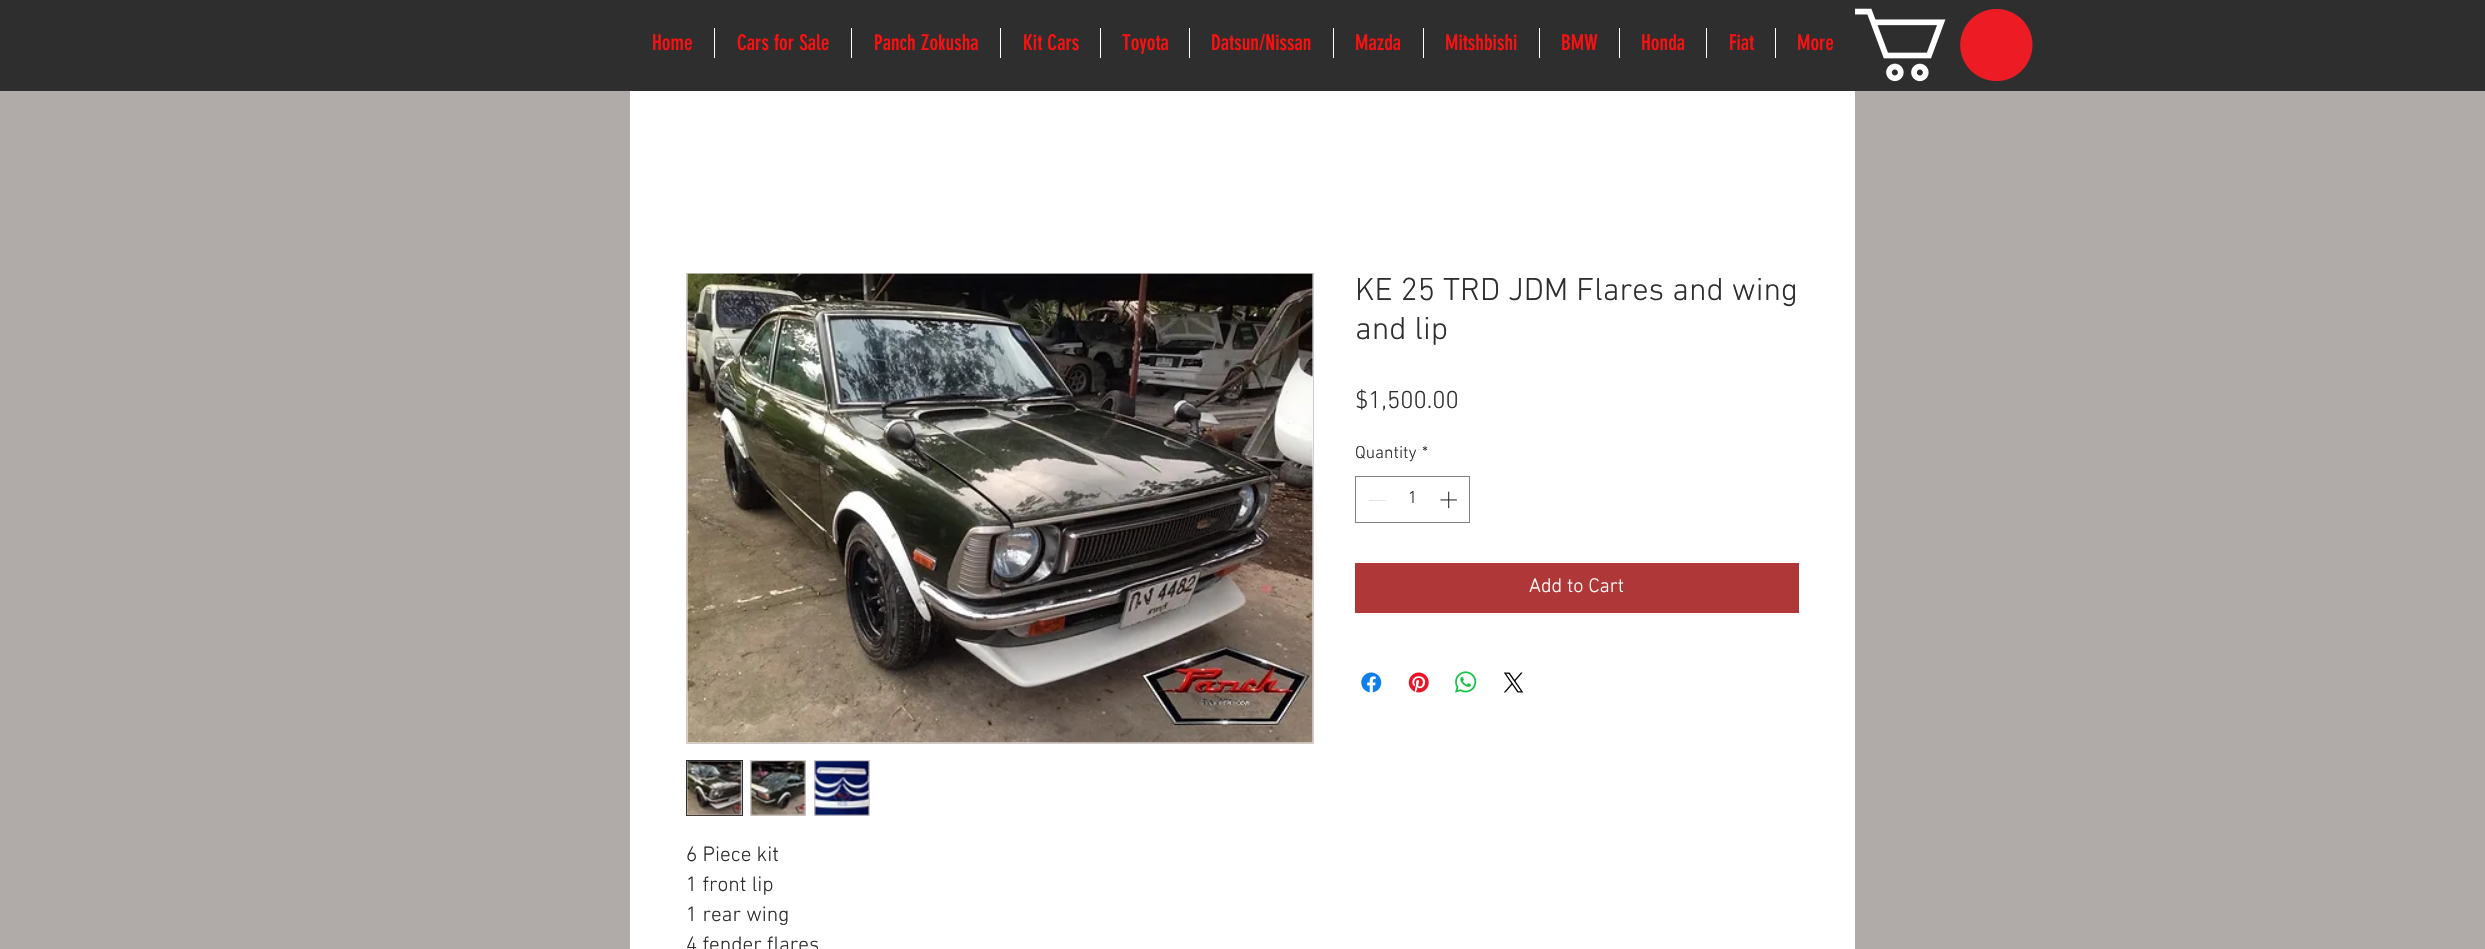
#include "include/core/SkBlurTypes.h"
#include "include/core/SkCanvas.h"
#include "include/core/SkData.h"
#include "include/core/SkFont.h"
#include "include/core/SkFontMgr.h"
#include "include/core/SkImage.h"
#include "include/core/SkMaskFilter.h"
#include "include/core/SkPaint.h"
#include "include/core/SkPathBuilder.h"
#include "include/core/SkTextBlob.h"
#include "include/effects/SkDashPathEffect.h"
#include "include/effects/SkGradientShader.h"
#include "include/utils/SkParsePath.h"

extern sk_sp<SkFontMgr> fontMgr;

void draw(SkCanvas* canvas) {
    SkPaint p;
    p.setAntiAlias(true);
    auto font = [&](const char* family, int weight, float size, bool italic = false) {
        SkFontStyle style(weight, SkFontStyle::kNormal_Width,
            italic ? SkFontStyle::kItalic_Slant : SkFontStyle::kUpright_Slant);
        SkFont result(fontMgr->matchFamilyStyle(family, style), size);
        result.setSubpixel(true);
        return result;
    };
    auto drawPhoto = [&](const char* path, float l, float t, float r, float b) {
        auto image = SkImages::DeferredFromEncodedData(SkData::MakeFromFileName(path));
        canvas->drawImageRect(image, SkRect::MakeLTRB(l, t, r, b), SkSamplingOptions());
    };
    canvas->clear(0xFFB0AAA9);
    p.setColor(0xFF2F2E2E);
    canvas->drawRect(SkRect::MakeLTRB(0, 0, 2485, 91), p);
    auto font1 = font("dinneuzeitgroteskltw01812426", 400, 21.25f);
    p.setColor(0xFFFF0F0F);
    canvas->drawString("Home", 652, 50, font1, p);
    p.setColor(0xFFFFFFFF);
    canvas->drawRect(SkRect::MakeLTRB(714, 28, 715, 58), p);
    p.setColor(0xFFFF0F0F);
    canvas->drawString("Cars for Sale", 737, 50, font1, p);
    p.setColor(0xFFFFFFFF);
    canvas->drawRect(SkRect::MakeLTRB(851, 28, 852, 58), p);
    p.setColor(0xFFFF0F0F);
    canvas->drawString("Panch Zokusha", 874, 50, font1, p);
    p.setColor(0xFFFFFFFF);
    canvas->drawRect(SkRect::MakeLTRB(1000, 28, 1001, 58), p);
    p.setColor(0xFFFF0F0F);
    canvas->drawString("Kit Cars", 1023, 50, font1, p);
    p.setColor(0xFFFFFFFF);
    canvas->drawRect(SkRect::MakeLTRB(1100, 28, 1101, 58), p);
    p.setColor(0xFFFF0F0F);
    canvas->drawString("Toyota", 1122, 50, font1, p);
    p.setColor(0xFFFFFFFF);
    canvas->drawRect(SkRect::MakeLTRB(1189, 28, 1190, 58), p);
    p.setColor(0xFFFF0F0F);
    canvas->drawString("Datsun/Nissan", 1211, 50, font1, p);
    p.setColor(0xFFFFFFFF);
    canvas->drawRect(SkRect::MakeLTRB(1333, 28, 1334, 58), p);
    p.setColor(0xFFFF0F0F);
    canvas->drawString("Mazda", 1355, 50, font1, p);
    p.setColor(0xFFFFFFFF);
    canvas->drawRect(SkRect::MakeLTRB(1423, 28, 1424, 58), p);
    p.setColor(0xFFFF0F0F);
    canvas->drawString("Mitshbishi", 1445, 50, font1, p);
    p.setColor(0xFFFFFFFF);
    canvas->drawRect(SkRect::MakeLTRB(1539, 28, 1540, 58), p);
    p.setColor(0xFFFF0F0F);
    canvas->drawString("BMW", 1561, 50, font1, p);
    p.setColor(0xFFFFFFFF);
    canvas->drawRect(SkRect::MakeLTRB(1619, 28, 1620, 58), p);
    p.setColor(0xFFFF0F0F);
    canvas->drawString("Honda", 1641, 50, font1, p);
    p.setColor(0xFFFFFFFF);
    canvas->drawRect(SkRect::MakeLTRB(1706, 28, 1707, 58), p);
    p.setColor(0xFFFF0F0F);
    canvas->drawString("Fiat", 1729, 50, font1, p);
    p.setColor(0xFFFFFFFF);
    canvas->drawRect(SkRect::MakeLTRB(1775, 28, 1776, 58), p);
    p.setColor(0xFFFF0F0F);
    canvas->drawString("More", 1797, 50, font1, p);
    drawPhoto("media/1.png", 1855, 8, 2033, 82);
    p.setColor(0xFFFFFFFF);
    canvas->drawRect(SkRect::MakeLTRB(630, 91, 1855, 949), p);
    auto font2 = font("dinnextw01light", 300, 32.5f);
    p.setColor(0xFF2F2E2E);
    canvas->drawString("KE 25 TRD JDM Flares and wing", 1355, 300, font2, p);
    canvas->drawString("and lip", 1355, 339, font2, p);
    auto font3 = font("dinnextw01light", 300, 25);
    canvas->drawString("$1,500.00", 1355, 408, font3, p);
    auto font4 = font("dinnextw01light", 300, 17.5f);
    canvas->drawString("Quantity", 1355, 458, font4, p);
    canvas->drawString("*", 1422, 458, font4, p);
    p.setStyle(SkPaint::kStroke_Style);
    p.setStrokeWidth(1);
    p.setColor(0xFF828282);
    canvas->drawRect(SkRect::MakeLTRB(1355.5f, 476.5f, 1469.5f, 522.5f), p);
    p.setStyle(SkPaint::kFill_Style);
    p.setColor(0xFFE3E3E3);
    canvas->drawRect(SkRect::MakeLTRB(1369, 500, 1386, 501), p);
    p.setColor(0xFF2F2E2E);
    canvas->drawString("1", 1408, 503, font4, p);
    drawPhoto("media/2.png", 1440, 491, 1457, 509);
    p.setColor(0xFFB03737);
    canvas->drawRect(SkRect::MakeLTRB(1355, 563, 1799, 613), p);
    auto font5 = font("dinnextw01light", 300, 20);
    p.setColor(0xFFFFFFFF);
    canvas->drawString("Add to Cart", 1529, 592, font5, p);
    drawPhoto("media/3.png", 1361, 672, 1382, 693);
    drawPhoto("media/4.png", 1408, 672, 1429, 693);
    drawPhoto("media/5.png", 1455, 671, 1477, 693);
    drawPhoto("media/6.png", 1503, 672, 1524, 693);
    p.setStyle(SkPaint::kStroke_Style);
    p.setColor(0xFFD1CAC9);
    canvas->drawRect(SkRect::MakeLTRB(686.5f, 273.5f, 1313.5f, 743.5f), p);
    drawPhoto("media/7.png", 687, 273, 1313, 743);
    p.setStyle(SkPaint::kFill_Style);
    canvas->drawRect(SkRect::MakeLTRB(686.5f, 760.5f, 742.5f, 815.5f), p);
    p.setStyle(SkPaint::kStroke_Style);
    p.setColor(0xFF2F2E2E);
    canvas->drawRect(SkRect::MakeLTRB(686.5f, 760.5f, 742.5f, 815.5f), p);
    drawPhoto("media/8.png", 687, 761, 742, 816);
    p.setStyle(SkPaint::kFill_Style);
    p.setColor(0xFFD1CAC9);
    canvas->drawRect(SkRect::MakeLTRB(750, 760, 806, 816), p);
    drawPhoto("media/9.png", 750, 761, 806, 816);
    canvas->drawRect(SkRect::MakeLTRB(814, 760, 870, 816), p);
    drawPhoto("media/10.png", 814, 761, 870, 816);
    auto font6 = font("dinnextw01light", 300, 21.25f);
    p.setColor(0xFF2F2E2E);
    {
        const struct { const char* s; float x, y; } items[] = {
            {"6 Piece kit", 686, 861},
            {"1 front lip", 686, 891},
            {"1 rear wing", 686, 921},
            {"4 fender flares", 686, 951},
        };
        for (auto [s, x, y] : items) {
            canvas->drawString(s, x, y, font6, p);
        }
    }
}
